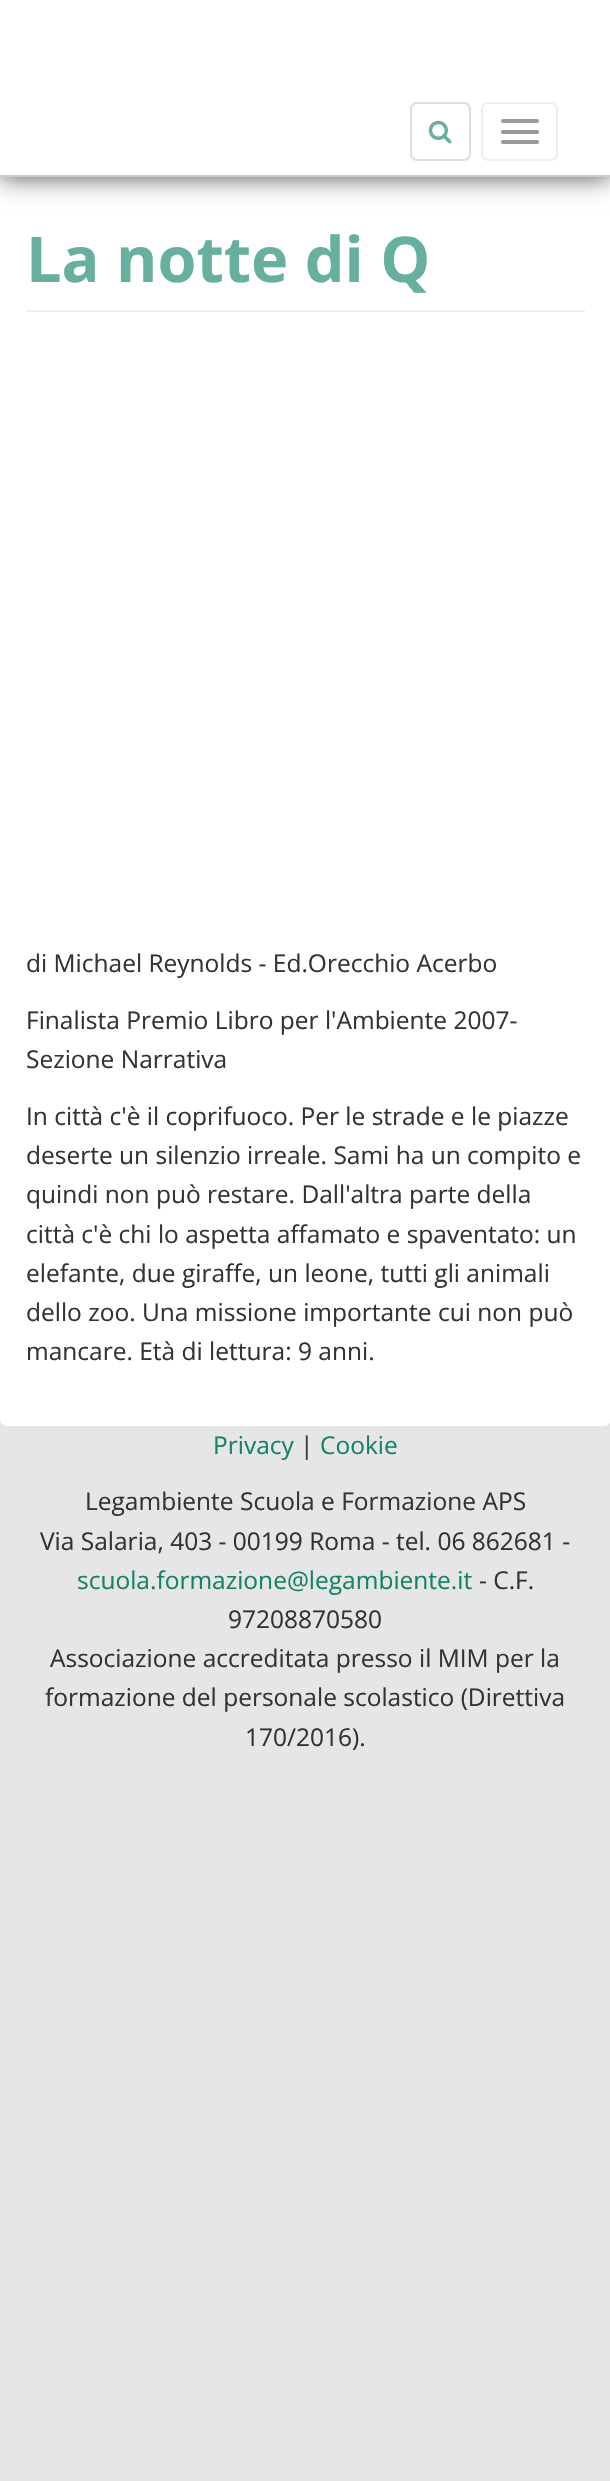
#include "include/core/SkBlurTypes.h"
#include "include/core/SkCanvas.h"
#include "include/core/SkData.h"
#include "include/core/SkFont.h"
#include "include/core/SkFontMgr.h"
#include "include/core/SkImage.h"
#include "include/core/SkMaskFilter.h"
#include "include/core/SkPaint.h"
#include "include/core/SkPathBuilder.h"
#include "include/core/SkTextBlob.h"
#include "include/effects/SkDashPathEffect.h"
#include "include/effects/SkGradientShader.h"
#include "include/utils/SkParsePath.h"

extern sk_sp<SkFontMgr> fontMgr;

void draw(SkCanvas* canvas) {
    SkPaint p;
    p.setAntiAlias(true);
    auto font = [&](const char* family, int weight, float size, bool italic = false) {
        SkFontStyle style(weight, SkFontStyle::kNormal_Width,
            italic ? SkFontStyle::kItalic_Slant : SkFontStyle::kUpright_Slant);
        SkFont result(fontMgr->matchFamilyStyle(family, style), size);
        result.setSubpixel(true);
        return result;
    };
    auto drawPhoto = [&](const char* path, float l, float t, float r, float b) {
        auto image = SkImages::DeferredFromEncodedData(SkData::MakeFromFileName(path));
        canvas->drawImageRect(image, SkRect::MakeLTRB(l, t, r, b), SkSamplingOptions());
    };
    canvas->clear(0xFFE6E6E6);
    p.setColor(0xFFFFFFFF);
    canvas->drawRoundRect(SkRect::MakeLTRB(0, 28, 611, 1426), 7, 7, p);
    p.setColor(0xB3000000);
    p.setMaskFilter(SkMaskFilter::MakeBlur(kNormal_SkBlurStyle, 12));
    canvas->drawRect(SkRect::MakeLTRB(0, 0, 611, 177), p);
    p.setMaskFilter(nullptr);
    p.setColor(0xFFFFFFFF);
    canvas->drawRect(SkRect::MakeLTRB(0, 0, 610, 175), p);
    p.setColor(0xFFCCCCCC);
    canvas->drawRect(SkRect::MakeLTRB(0, 175, 610, 177), p);
    p.setStyle(SkPaint::kStroke_Style);
    p.setStrokeWidth(2);
    p.setColor(0xFFDDDDDD);
    canvas->drawRoundRect(SkRect::MakeLTRB(411, 103, 470, 160), 6, 6, p);
    drawPhoto("media/1.png", 428, 120, 452, 144);
    p.setColor(0xFFEEEEEE);
    canvas->drawRoundRect(SkRect::MakeLTRB(482, 103, 557, 160), 6, 6, p);
    p.setStyle(SkPaint::kFill_Style);
    p.setColor(0xFF999999);
    canvas->drawRoundRect(SkRect::MakeLTRB(501, 119, 539, 123), 2, 2, p);
    canvas->drawRoundRect(SkRect::MakeLTRB(501, 130, 539, 134), 2, 2, p);
    canvas->drawRoundRect(SkRect::MakeLTRB(501, 140, 539, 144), 2, 2, p);
    p.setColor(0xFFEEEEEE);
    canvas->drawRect(SkRect::MakeLTRB(26, 310, 585, 312), p);
    auto font1 = font("Open Sans", 700, 63);
    p.setColor(0xFF67AF9F);
    canvas->drawString("La notte di Q", 26, 282, font1, p);
    auto font2 = font("Open Sans", 400, 24.5f);
    p.setColor(0xFF333333);
    {
        const struct { const char* s; float x, y; } items[] = {
            {"di Michael Reynolds - Ed.Orecchio Acerbo", 26, 972},
            {"Finalista Premio Libro per l'Ambiente 2007-", 26, 1029},
            {"Sezione Narrativa", 26, 1068},
            {"In città c'è il coprifuoco. Per le strade e le piazze", 26, 1125},
            {"deserte un silenzio irreale. Sami ha un compito e", 26, 1164},
            {"quindi non può restare. Dall'altra parte della", 26, 1203},
            {"città c'è chi lo aspetta affamato e spaventato: un", 26, 1243},
            {"elefante, due giraffe, un leone, tutti gli animali", 26, 1282},
            {"dello zoo. Una missione importante cui non può", 26, 1321},
            {"mancare. Età di lettura: 9 anni.", 26, 1360},
        };
        for (auto [s, x, y] : items) {
            canvas->drawString(s, x, y, font2, p);
        }
    }
    p.setColor(0xFF128269);
    canvas->drawString("Privacy", 213, 1454, font2, p);
    p.setColor(0xFF333333);
    canvas->drawString("|", 300, 1454, font2, p);
    p.setColor(0xFF128269);
    canvas->drawString("Cookie", 320, 1454, font2, p);
    p.setColor(0xFF333333);
    canvas->drawString("Legambiente Scuola e Formazione APS", 85, 1510, font2, p);
    canvas->drawString("Via Salaria, 403 - 00199 Roma - tel. 06 862681 -", 40, 1550, font2, p);
    p.setColor(0xFF128269);
    canvas->drawString("scuola.formazione@legambiente.it", 77, 1589, font2, p);
    p.setColor(0xFF333333);
    {
        const struct { const char* s; float x, y; } items[] = {
            {"- C.F.", 479, 1589},
            {"97208870580", 228, 1628},
            {"Associazione accreditata presso il MIM per la", 50, 1667},
            {"formazione del personale scolastico (Direttiva", 45, 1706},
            {"170/2016).", 245, 1746},
        };
        for (auto [s, x, y] : items) {
            canvas->drawString(s, x, y, font2, p);
        }
    }
}
